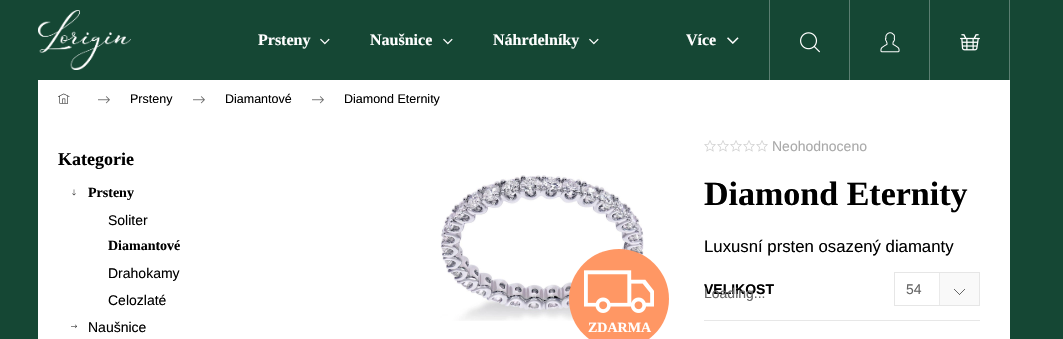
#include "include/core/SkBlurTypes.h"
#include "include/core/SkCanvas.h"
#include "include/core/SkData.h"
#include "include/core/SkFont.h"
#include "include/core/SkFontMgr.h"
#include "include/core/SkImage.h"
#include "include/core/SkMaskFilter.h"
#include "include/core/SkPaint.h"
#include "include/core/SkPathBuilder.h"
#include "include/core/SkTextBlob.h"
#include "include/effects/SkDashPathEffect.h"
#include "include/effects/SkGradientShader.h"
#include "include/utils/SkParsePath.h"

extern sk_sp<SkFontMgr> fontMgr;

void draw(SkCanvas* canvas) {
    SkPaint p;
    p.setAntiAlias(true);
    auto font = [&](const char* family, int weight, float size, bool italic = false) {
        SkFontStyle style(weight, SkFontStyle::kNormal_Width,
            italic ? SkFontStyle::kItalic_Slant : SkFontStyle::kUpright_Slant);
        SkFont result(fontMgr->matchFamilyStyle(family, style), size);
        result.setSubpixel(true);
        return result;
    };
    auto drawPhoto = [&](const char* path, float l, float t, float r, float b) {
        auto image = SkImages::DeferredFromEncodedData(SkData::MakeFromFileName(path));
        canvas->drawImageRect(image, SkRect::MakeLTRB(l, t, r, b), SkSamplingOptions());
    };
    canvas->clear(0xFF154734);
    drawPhoto("media/1.png", 38, 10, 131, 70);
    auto font1 = font("Liberation Serif", 700, 16);
    p.setColor(0xFFFFFFFF);
    canvas->drawString("Prsteny", 258, 45, font1, p);
    drawPhoto("media/2.png", 320, 38, 330, 45);
    canvas->drawString("Naušnice", 370, 45, font1, p);
    drawPhoto("media/2.png", 443, 38, 453, 45);
    canvas->drawString("Náhrdelníky", 493, 45, font1, p);
    drawPhoto("media/2.png", 589, 38, 599, 45);
    canvas->drawString("Více", 686, 45, font1, p);
    drawPhoto("media/3.png", 727, 37, 739, 44);
    p.setColor(0xFF5B7E71);
    canvas->drawRect(SkRect::MakeLTRB(1009, 0, 1010, 80), p);
    canvas->drawRect(SkRect::MakeLTRB(769, 0, 770, 80), p);
    drawPhoto("media/4.png", 800, 32, 820, 53);
    canvas->drawRect(SkRect::MakeLTRB(849, 0, 850, 80), p);
    drawPhoto("media/5.png", 880, 32, 900, 53);
    canvas->drawRect(SkRect::MakeLTRB(929, 0, 930, 80), p);
    drawPhoto("media/6.png", 960, 34, 980, 51);
    p.setColor(0xFFFFFFFF);
    canvas->drawRect(SkRect::MakeLTRB(38, 80, 1010, 339), p);
    drawPhoto("media/7.png", 58, 93, 70, 104);
    drawPhoto("media/8.png", 98, 96, 110, 104);
    auto font2 = font("Liberation Sans", 400, 12.5f);
    p.setColor(0xFF000000);
    canvas->drawString("Prsteny", 130, 103, font2, p);
    drawPhoto("media/8.png", 193, 96, 205, 104);
    canvas->drawString("Diamantové", 225, 103, font2, p);
    drawPhoto("media/8.png", 312, 96, 324, 104);
    canvas->drawString("Diamond Eternity", 344, 103, font2, p);
    auto font3 = font("Liberation Serif", 700, 18);
    canvas->drawString("Kategorie", 58, 165, font3, p);
    drawPhoto("media/9.png", 72, 189, 76, 196);
    auto font4 = font("Liberation Serif", 700, 14);
    canvas->drawString("Prsteny", 88, 197, font4, p);
    auto font5 = font("Liberation Sans", 400, 14);
    canvas->drawString("Soliter", 108, 225, font5, p);
    canvas->drawString("Diamantové", 108, 250, font4, p);
    canvas->drawString("Drahokamy", 108, 278, font5, p);
    canvas->drawString("Celozlaté", 108, 305, font5, p);
    drawPhoto("media/10.png", 71, 324, 77, 329);
    canvas->drawString("Naušnice", 88, 332, font5, p);
    drawPhoto("media/11.png", 704, 140, 716, 152);
    drawPhoto("media/11.png", 717, 140, 729, 152);
    drawPhoto("media/11.png", 730, 140, 742, 152);
    drawPhoto("media/11.png", 743, 140, 755, 152);
    drawPhoto("media/11.png", 756, 140, 768, 152);
    p.setColor(0xFFAAAAAA);
    canvas->drawString("Neohodnoceno", 772, 151, font5, p);
    auto font6 = font("Liberation Serif", 700, 34);
    p.setColor(0xFF000000);
    canvas->drawString("Diamond Eternity", 704, 205, font6, p);
    auto font7 = font("Liberation Sans", 400, 16.75f);
    canvas->drawString("Luxusní prsten osazený diamanty", 704, 252, font7, p);
    auto font8 = font("Liberation Sans", 700, 14);
    canvas->drawString("VELIKOST", 704, 294, font8, p);
    drawPhoto("media/12.png", 939, 273, 979, 305);
    p.setStyle(SkPaint::kStroke_Style);
    p.setStrokeWidth(1);
    p.setColor(0xFFE6E6E6);
    canvas->drawRect(SkRect::MakeLTRB(894.5f, 272.5f, 979.5f, 305.5f), p);
    p.setStyle(SkPaint::kFill_Style);
    p.setColor(0xFF666666);
    canvas->drawString("54", 906, 294, font5, p);
    p.setColor(0xFFE7E7E7);
    canvas->drawRect(SkRect::MakeLTRB(704, 320, 980, 321), p);
    drawPhoto("media/13.png", 440, 175, 644, 321);
    p.setColor(0xFF666666);
    canvas->drawString("Loading...", 704, 298, font5, p);
    p.setColor(0xFFFF9764);
    canvas->drawCircle(619, 299, 50, p);
    drawPhoto("media/14.png", 584, 270, 654, 313);
    p.setColor(0xFFFFFFFF);
    canvas->drawString("ZDARMA", 588, 332, font4, p);
}
